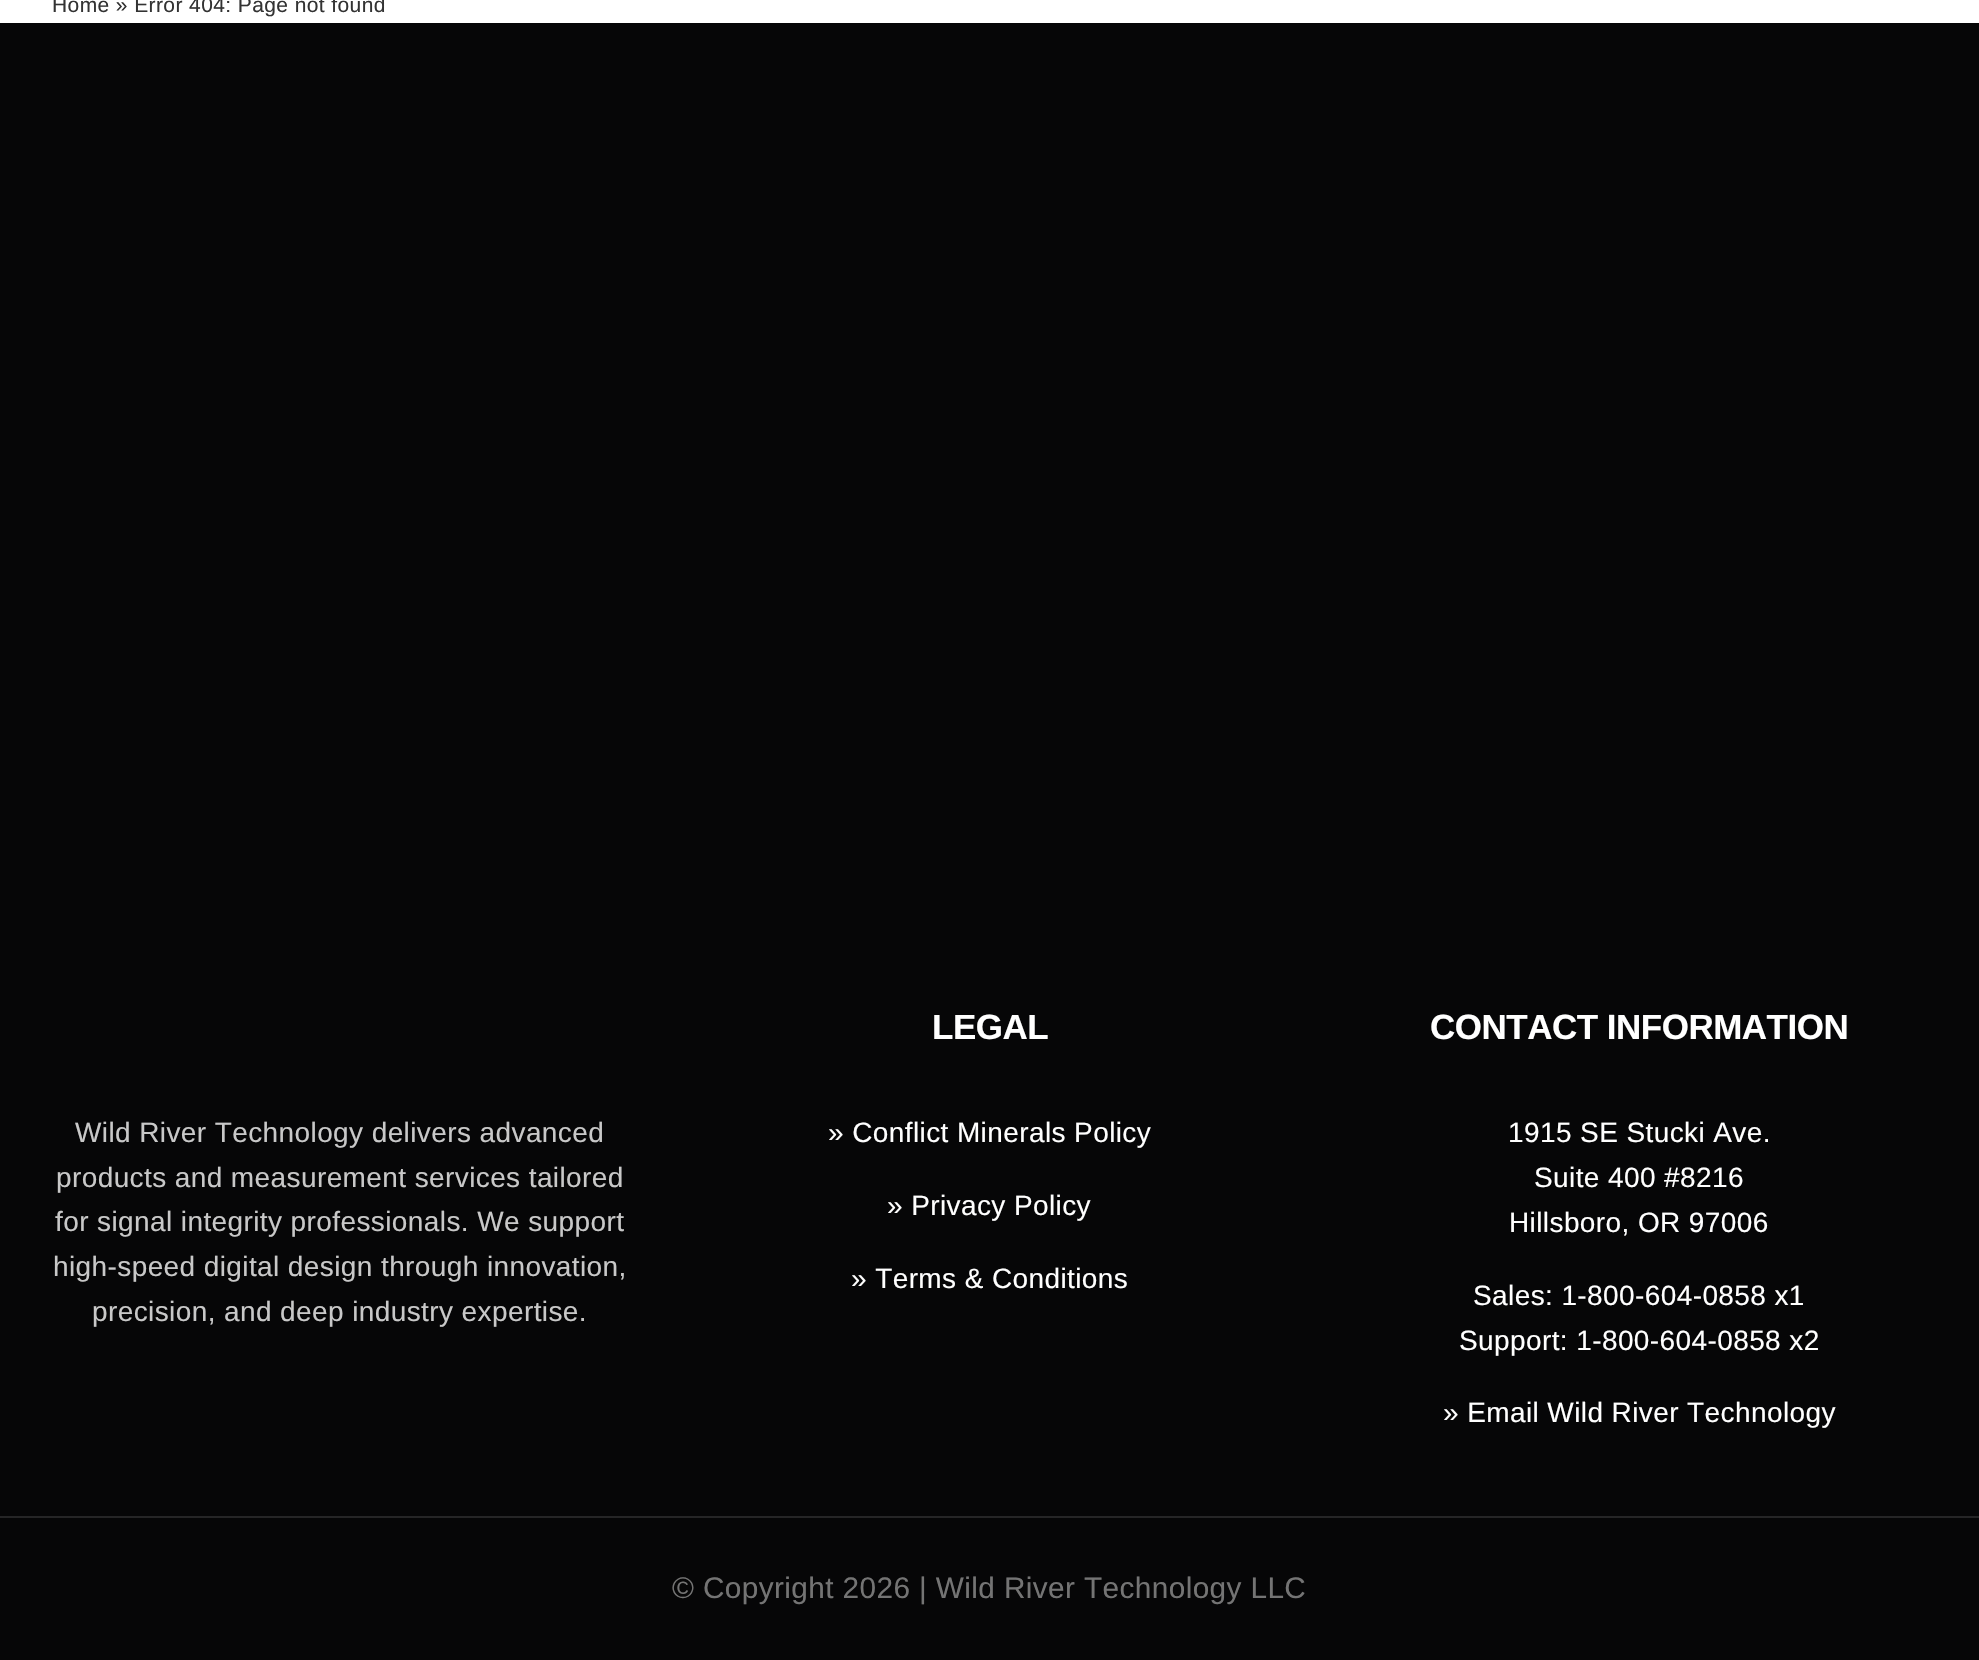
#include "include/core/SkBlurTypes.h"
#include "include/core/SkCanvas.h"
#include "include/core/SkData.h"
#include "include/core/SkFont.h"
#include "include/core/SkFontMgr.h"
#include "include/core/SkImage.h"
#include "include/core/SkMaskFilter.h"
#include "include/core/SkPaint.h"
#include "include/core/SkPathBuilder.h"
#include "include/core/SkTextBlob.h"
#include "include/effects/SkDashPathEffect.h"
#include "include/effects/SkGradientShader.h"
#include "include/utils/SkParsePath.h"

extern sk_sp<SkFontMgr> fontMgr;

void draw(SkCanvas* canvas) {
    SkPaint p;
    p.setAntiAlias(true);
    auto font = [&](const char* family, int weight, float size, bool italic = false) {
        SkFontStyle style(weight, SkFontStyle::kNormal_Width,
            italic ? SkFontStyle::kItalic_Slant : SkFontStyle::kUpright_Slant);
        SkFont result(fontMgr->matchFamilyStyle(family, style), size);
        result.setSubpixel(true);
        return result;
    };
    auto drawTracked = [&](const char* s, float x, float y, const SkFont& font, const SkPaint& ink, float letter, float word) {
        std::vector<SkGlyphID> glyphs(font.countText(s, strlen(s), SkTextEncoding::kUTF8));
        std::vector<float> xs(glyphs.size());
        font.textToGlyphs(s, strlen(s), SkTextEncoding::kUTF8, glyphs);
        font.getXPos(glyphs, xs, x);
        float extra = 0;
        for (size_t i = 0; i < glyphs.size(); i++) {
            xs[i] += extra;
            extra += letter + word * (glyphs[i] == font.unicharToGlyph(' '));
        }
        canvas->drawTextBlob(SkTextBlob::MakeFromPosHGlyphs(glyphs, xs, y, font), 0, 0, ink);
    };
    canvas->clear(0xFFFFFFFF);
    auto font1 = font("Liberation Sans", 400, 21);
    p.setColor(0xFF333333);
    drawTracked("Home » Error 404: Page not found", 52, 12, font1, p, 0.4f, 0);
    p.setColor(0xFF060607);
    canvas->drawRect(SkRect::MakeLTRB(0, 23, 1979, 1516), p);
    auto font2 = font("Liberation Sans", 400, 28);
    p.setColor(0xFFC8C8C8);
    {
        const struct { const char* s; float x, y; } items[] = {
            {"Wild River Technology delivers advanced", 75, 1142},
            {"products and measurement services tailored", 56, 1187},
            {"for signal integrity professionals. We support", 55, 1231},
            {"high-speed digital design through innovation,", 53, 1276},
            {"precision, and deep industry expertise.", 92, 1321},
        };
        for (auto [s, x, y] : items) {
            drawTracked(s, x, y, font2, p, 0.4f, 0);
        }
    }
    auto font3 = font("Liberation Sans", 700, 35);
    p.setColor(0xFFFFFFFF);
    drawTracked("LEGAL", 932, 1039, font3, p, -0.5f, 0);
    {
        const struct { const char* s; float x, y; } items[] = {
            {"» Conflict Minerals Policy", 828, 1142},
            {"» Privacy Policy", 887, 1215},
            {"» Terms & Conditions", 851, 1288},
        };
        for (auto [s, x, y] : items) {
            drawTracked(s, x, y, font2, p, 0.4f, 0);
        }
    }
    drawTracked("CONTACT INFORMATION", 1430, 1039, font3, p, -0.5f, 0);
    {
        const struct { const char* s; float x, y; } items[] = {
            {"1915 SE Stucki Ave.", 1508, 1142},
            {"Suite 400 #8216", 1534, 1187},
            {"Hillsboro, OR 97006", 1509, 1232},
            {"Sales: 1-800-604-0858 x1", 1473, 1305},
            {"Support: 1-800-604-0858 x2", 1459, 1350},
            {"» Email Wild River Technology", 1443, 1422},
        };
        for (auto [s, x, y] : items) {
            drawTracked(s, x, y, font2, p, 0.4f, 0);
        }
    }
    p.setColor(0xFF060607);
    canvas->drawRect(SkRect::MakeLTRB(0, 1518, 1979, 1660), p);
    p.setColor(0xFF252526);
    canvas->drawRect(SkRect::MakeLTRB(0, 1516, 1979, 1518), p);
    auto font4 = font("Liberation Sans", 400, 29.75f);
    p.setColor(0xFF747474);
    drawTracked("© Copyright 2026 | Wild River Technology LLC", 672, 1598, font4, p, 0.4f, 0);
}
